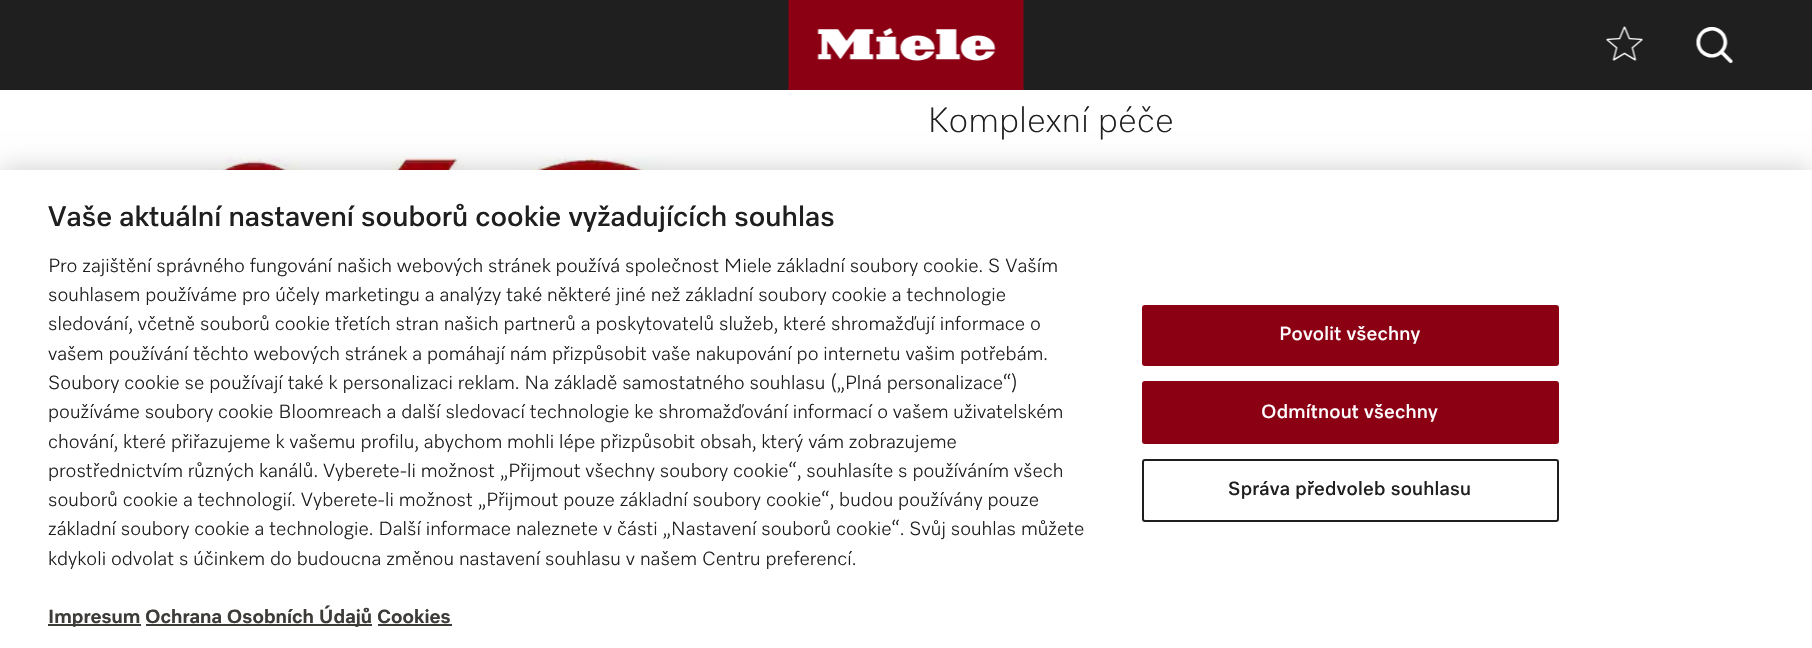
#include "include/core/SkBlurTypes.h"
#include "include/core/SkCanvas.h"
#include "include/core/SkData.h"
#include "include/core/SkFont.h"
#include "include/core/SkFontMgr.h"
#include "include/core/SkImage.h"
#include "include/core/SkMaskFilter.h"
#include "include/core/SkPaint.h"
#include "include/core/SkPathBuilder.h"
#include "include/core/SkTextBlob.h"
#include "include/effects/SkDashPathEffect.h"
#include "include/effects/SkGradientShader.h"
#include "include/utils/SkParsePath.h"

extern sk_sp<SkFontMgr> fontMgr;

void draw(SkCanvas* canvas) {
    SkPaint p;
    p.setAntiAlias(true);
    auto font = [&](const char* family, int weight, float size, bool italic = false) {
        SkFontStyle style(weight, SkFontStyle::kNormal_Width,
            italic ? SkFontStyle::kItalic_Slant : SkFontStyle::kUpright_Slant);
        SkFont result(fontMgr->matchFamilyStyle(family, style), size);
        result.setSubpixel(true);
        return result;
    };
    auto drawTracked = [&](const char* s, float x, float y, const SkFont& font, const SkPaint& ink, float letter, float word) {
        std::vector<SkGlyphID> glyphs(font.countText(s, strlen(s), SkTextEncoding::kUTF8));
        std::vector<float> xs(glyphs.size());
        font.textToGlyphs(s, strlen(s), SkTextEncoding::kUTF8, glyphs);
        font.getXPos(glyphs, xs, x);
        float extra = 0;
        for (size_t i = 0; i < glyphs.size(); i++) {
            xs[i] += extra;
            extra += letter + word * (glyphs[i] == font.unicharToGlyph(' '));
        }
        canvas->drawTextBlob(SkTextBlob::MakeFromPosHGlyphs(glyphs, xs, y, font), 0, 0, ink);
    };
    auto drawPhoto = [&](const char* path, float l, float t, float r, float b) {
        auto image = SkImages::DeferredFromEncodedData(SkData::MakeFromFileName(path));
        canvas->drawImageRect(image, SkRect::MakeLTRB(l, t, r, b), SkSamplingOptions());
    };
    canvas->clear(0xFFFFFFFF);
    p.setColor(0xFF1F1F1F);
    canvas->drawRect(SkRect::MakeLTRB(0, 0, 1812, 90), p);
    drawPhoto("media/1.png", 788, 0, 1024, 90);
    drawPhoto("media/2.png", 1606, 26, 1643, 61);
    drawPhoto("media/3.png", 1696, 27, 1733, 63);
    auto font1 = font("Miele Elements", 300, 36);
    canvas->drawString("Komplexní péče", 927, 132, font1, p);
    drawPhoto("media/4.png", 160, 157, 815, 170);
    p.setColor(0x33000000);
    p.setMaskFilter(SkMaskFilter::MakeBlur(kNormal_SkBlurStyle, 13.5f));
    canvas->drawRect(SkRect::MakeLTRB(0, 170, 1812, 648), p);
    p.setMaskFilter(nullptr);
    p.setColor(0xFFFFFFFF);
    canvas->drawRect(SkRect::MakeLTRB(0, 170, 1812, 648), p);
    auto font2 = font("Miele Elements", 600, 28.8f);
    p.setColor(0xFF1F1F1F);
    canvas->drawString("Vaše aktuální nastavení souborů cookie vyžadujících souhlas", 48, 226, font2, p);
    auto font3 = font("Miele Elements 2", 300, 19.5f);
    {
        const struct { const char* s; float x, y; } items[] = {
            {"Pro zajištění správného fungování našich webových stránek používá společnost Miele základní soubory cookie. S Vaším", 48, 272},
            {"souhlasem používáme pro účely marketingu a analýzy také některé jiné než základní soubory cookie a technologie", 48, 301},
            {"sledování, včetně souborů cookie třetích stran našich partnerů a poskytovatelů služeb, které shromažďují informace o", 48, 330},
            {"vašem používání těchto webových stránek a pomáhají nám přizpůsobit vaše nakupování po internetu vašim potřebám.", 48, 360},
            {"Soubory cookie se používají také k personalizaci reklam. Na základě samostatného souhlasu („Plná personalizace“)", 48, 389},
            {"používáme soubory cookie Bloomreach a další sledovací technologie ke shromažďování informací o vašem uživatelském", 48, 418},
            {"chování, které přiřazujeme k vašemu profilu, abychom mohli lépe přizpůsobit obsah, který vám zobrazujeme", 48, 448},
            {"prostřednictvím různých kanálů. Vyberete-li možnost „Přijmout všechny soubory cookie“, souhlasíte s používáním všech", 48, 477},
            {"souborů cookie a technologií. Vyberete-li možnost „Přijmout pouze základní soubory cookie“, budou používány pouze", 48, 506},
            {"základní soubory cookie a technologie. Další informace naleznete v části „Nastavení souborů cookie“. Svůj souhlas můžete", 48, 535},
            {"kdykoli odvolat s účinkem do budoucna změnou nastavení souhlasu v našem Centru preferencí.", 48, 565},
        };
        for (auto [s, x, y] : items) {
            canvas->drawString(s, x, y, font3, p);
        }
    }
    p.setColor(0xFF3E3C39);
    canvas->drawRect(SkRect::MakeLTRB(48, 624, 141, 626), p);
    auto font4 = font("Miele Elements", 700, 19.5f);
    canvas->drawString("Impresum", 48, 623, font4, p);
    canvas->drawRect(SkRect::MakeLTRB(146, 624, 372, 626), p);
    canvas->drawString("Ochrana Osobních Údajů", 145, 623, font4, p);
    canvas->drawString("Cookies", 377, 623, font4, p);
    canvas->drawRect(SkRect::MakeLTRB(378, 624, 452, 626), p);
    p.setColor(0xFF8C0014);
    canvas->drawRoundRect(SkRect::MakeLTRB(1143, 306, 1558, 365), 2, 2, p);
    p.setStyle(SkPaint::kStroke_Style);
    p.setStrokeWidth(2);
    canvas->drawRoundRect(SkRect::MakeLTRB(1143, 306, 1558, 365), 2, 2, p);
    auto font5 = font("Miele Elements", 600, 19.5f);
    p.setStyle(SkPaint::kFill_Style);
    p.setColor(0xFFFFFFFF);
    drawTracked("Povolit všechny", 1279, 340, font5, p, 0.2f, 0);
    p.setColor(0xFF8C0014);
    canvas->drawRoundRect(SkRect::MakeLTRB(1143, 382, 1558, 443), 2, 2, p);
    p.setStyle(SkPaint::kStroke_Style);
    canvas->drawRoundRect(SkRect::MakeLTRB(1143, 382, 1558, 443), 2, 2, p);
    p.setStyle(SkPaint::kFill_Style);
    p.setColor(0xFFFFFFFF);
    drawTracked("Odmítnout všechny", 1261, 418, font5, p, 0.2f, 0);
    p.setStyle(SkPaint::kStroke_Style);
    p.setColor(0xFF1E1E1E);
    canvas->drawRoundRect(SkRect::MakeLTRB(1143, 460, 1558, 521), 2, 2, p);
    p.setStyle(SkPaint::kFill_Style);
    p.setColor(0xFF1F1F1F);
    drawTracked("Správa předvoleb souhlasu", 1228, 495, font5, p, 0.2f, 0);
}
